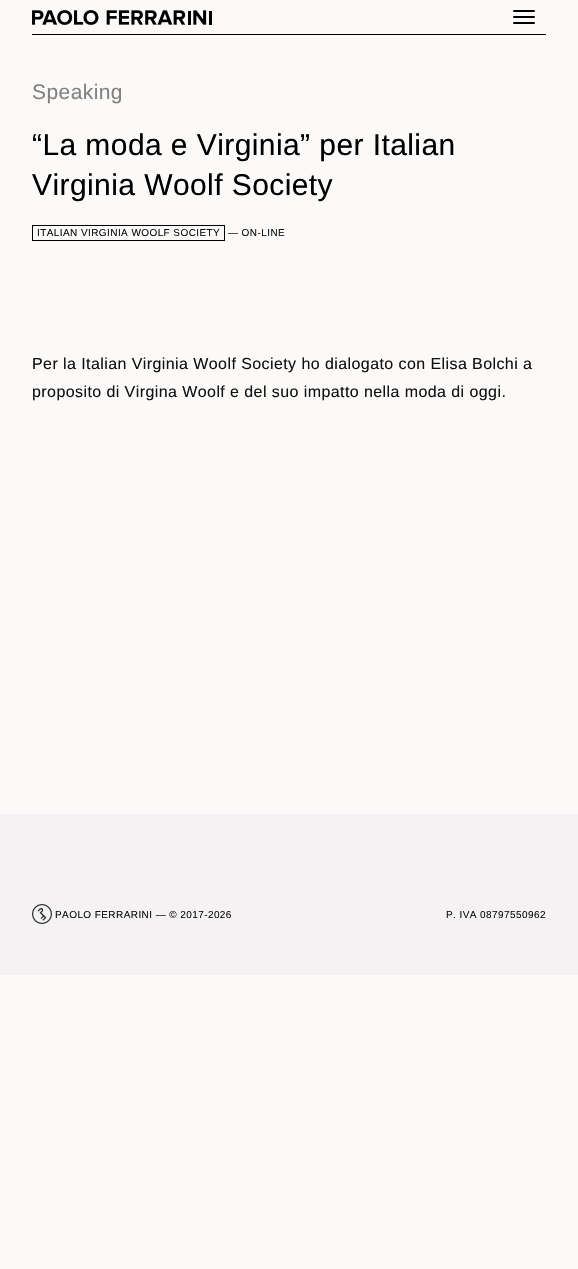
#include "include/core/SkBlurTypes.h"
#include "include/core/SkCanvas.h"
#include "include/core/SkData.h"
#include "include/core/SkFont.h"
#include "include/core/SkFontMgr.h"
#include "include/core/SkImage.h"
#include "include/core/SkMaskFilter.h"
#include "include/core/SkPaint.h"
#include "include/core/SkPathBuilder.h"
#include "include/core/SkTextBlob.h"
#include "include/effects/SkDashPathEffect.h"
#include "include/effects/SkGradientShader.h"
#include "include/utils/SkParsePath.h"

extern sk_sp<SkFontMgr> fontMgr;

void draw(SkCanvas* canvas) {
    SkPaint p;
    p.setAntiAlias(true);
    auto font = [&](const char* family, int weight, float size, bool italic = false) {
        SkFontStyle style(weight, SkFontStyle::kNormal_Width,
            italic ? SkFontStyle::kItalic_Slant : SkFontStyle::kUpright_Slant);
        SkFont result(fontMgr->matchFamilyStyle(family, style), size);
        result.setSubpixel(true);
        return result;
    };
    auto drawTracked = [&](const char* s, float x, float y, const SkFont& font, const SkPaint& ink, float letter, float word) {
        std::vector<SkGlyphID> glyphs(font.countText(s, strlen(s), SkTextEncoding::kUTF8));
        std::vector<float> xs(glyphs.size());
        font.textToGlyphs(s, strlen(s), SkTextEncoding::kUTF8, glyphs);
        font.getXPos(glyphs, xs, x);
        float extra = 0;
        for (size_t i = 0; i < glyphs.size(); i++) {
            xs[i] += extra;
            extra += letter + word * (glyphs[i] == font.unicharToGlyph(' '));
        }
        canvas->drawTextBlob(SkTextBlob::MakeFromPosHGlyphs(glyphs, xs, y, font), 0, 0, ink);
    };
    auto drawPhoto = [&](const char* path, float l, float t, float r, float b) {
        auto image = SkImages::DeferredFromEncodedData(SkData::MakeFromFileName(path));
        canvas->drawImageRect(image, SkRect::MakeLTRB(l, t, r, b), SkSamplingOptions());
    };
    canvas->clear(0xFFFCFAF9);
    p.setColor(0xFF000000);
    canvas->drawRect(SkRect::MakeLTRB(32, 34, 546, 35), p);
    drawPhoto("media/1.png", 32, 10, 212, 25);
    canvas->drawRoundRect(SkRect::MakeLTRB(513, 10, 535, 12), 1, 1, p);
    canvas->drawRoundRect(SkRect::MakeLTRB(513, 16, 535, 18), 1, 1, p);
    canvas->drawRoundRect(SkRect::MakeLTRB(513, 22, 535, 24), 1, 1, p);
    auto font1 = font("Liberation Sans", 400, 21);
    p.setColor(0xFF828181);
    drawTracked("Speaking", 32, 99, font1, p, 0.42f, 0);
    auto font2 = font("Liberation Sans", 400, 30);
    p.setColor(0xFF000000);
    drawTracked("“La moda e Virginia” per Italian", 32, 155, font2, p, 0.42f, 0);
    drawTracked("Virginia Woolf Society", 32, 195, font2, p, 0.42f, 0);
    p.setStyle(SkPaint::kStroke_Style);
    p.setStrokeWidth(1);
    canvas->drawRect(SkRect::MakeLTRB(32.5f, 225.5f, 224.5f, 240.5f), p);
    auto font3 = font("Liberation Sans", 400, 10);
    p.setStyle(SkPaint::kFill_Style);
    p.setColor(0xFF111111);
    drawTracked("ITALIAN VIRGINIA WOOLF SOCIETY", 37, 236, font3, p, 0.42f, 0);
    drawTracked("— ON-LINE", 228, 236, font3, p, 0.42f, 0);
    auto font4 = font("Liberation Sans", 400, 16);
    drawTracked("Per la Italian Virginia Woolf Society ho dialogato con Elisa Bolchi a", 32, 369, font4, p, 0.42f, 0);
    drawTracked("proposito di Virgina Woolf e del suo impatto nella moda di oggi.", 32, 397, font4, p, 0.42f, 0);
    p.setColor(0xFFF4F2F2);
    canvas->drawRect(SkRect::MakeLTRB(0, 814, 578, 975), p);
    drawPhoto("media/2.png", 32, 904, 52, 924);
    p.setColor(0xFF111111);
    drawTracked("PAOLO FERRARINI — © 2017-2026", 55, 918, font3, p, 0.42f, 0);
    drawTracked("P. IVA 08797550962", 446, 918, font3, p, 0.42f, 0);
}
